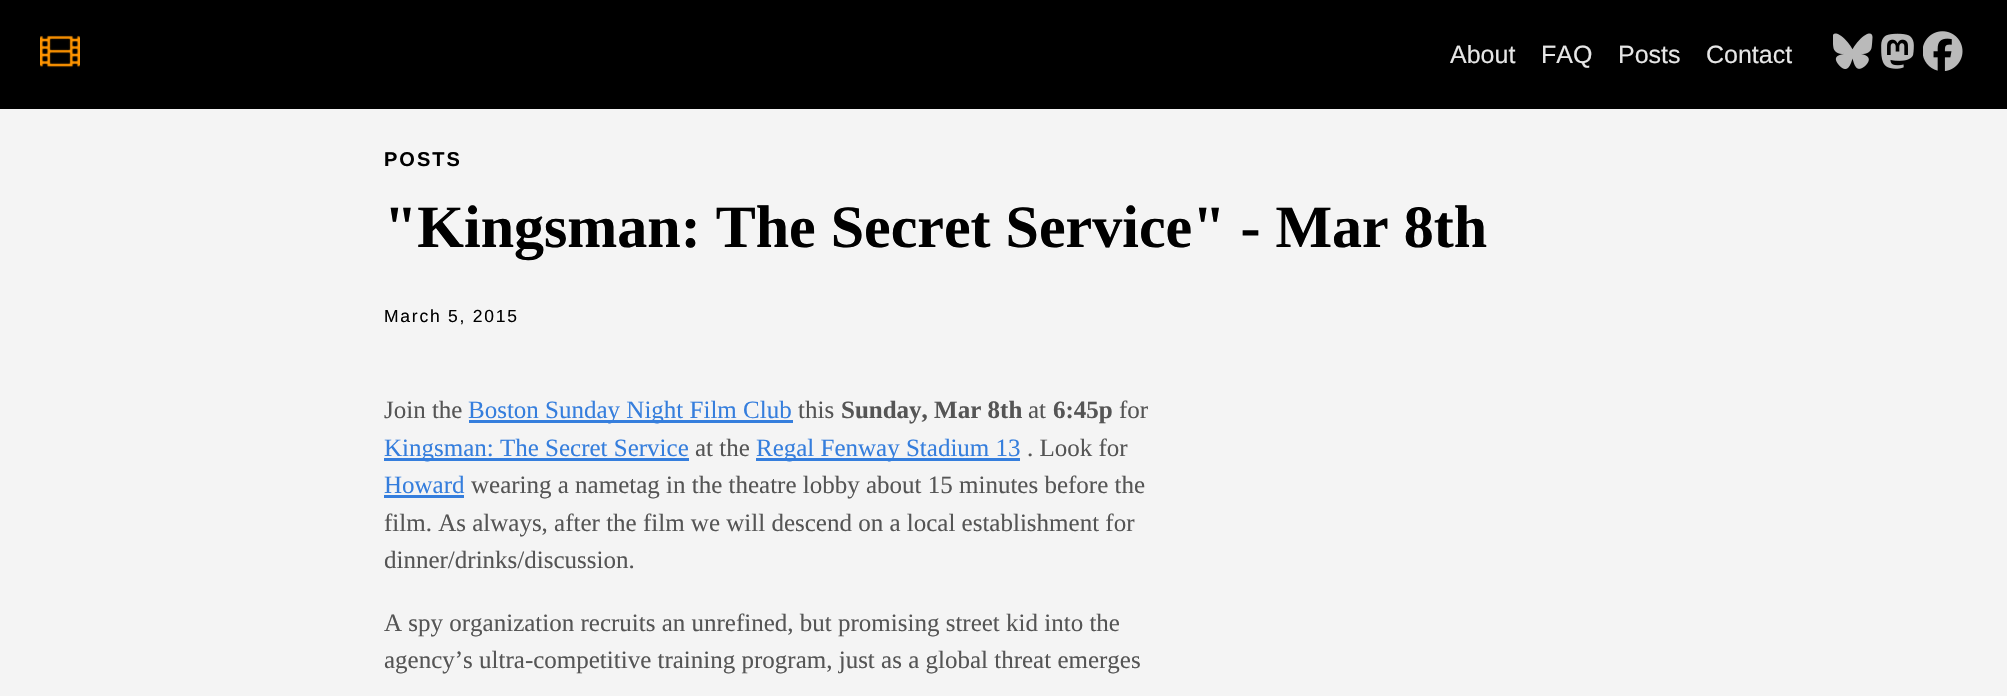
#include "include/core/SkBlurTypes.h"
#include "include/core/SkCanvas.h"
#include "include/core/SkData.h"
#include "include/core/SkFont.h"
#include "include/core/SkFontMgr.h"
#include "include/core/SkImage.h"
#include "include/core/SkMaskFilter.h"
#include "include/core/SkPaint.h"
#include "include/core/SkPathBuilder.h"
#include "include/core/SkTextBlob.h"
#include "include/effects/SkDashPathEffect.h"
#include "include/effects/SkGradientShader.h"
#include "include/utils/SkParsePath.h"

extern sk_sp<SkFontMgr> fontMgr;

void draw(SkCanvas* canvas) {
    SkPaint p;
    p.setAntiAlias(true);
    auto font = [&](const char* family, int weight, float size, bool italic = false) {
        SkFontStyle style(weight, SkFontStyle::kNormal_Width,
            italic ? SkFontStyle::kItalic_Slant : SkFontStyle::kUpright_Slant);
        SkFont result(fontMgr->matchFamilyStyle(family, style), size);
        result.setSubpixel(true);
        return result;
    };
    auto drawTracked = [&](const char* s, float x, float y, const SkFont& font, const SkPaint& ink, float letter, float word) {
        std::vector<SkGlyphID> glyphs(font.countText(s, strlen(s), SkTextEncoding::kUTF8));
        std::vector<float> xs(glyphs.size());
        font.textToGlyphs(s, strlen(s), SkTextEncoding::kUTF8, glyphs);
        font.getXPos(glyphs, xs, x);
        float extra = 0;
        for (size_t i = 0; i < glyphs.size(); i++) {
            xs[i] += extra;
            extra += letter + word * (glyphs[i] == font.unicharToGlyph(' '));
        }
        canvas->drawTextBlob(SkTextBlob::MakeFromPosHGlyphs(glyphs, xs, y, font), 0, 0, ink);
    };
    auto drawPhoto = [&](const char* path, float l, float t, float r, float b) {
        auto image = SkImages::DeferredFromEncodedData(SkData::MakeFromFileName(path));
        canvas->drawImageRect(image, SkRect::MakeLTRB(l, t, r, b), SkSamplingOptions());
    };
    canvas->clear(0xFFF4F4F4);
    p.setColor(0xFF000000);
    canvas->drawRect(SkRect::MakeLTRB(0, 0, 2007, 109), p);
    drawPhoto("media/1.png", 40, 35, 80, 68);
    auto font1 = font("Liberation Sans", 400, 25);
    p.setColor(0xFFE6E6E6);
    {
        const struct { const char* s; float x, y; } items[] = {
            {"About", 1450, 63},
            {"FAQ", 1541, 63},
            {"Posts", 1618, 63},
            {"Contact", 1706, 63},
        };
        for (auto [s, x, y] : items) {
            canvas->drawString(s, x, y, font1, p);
        }
    }
    drawPhoto("media/2.png", 1833, 33, 1873, 69);
    drawPhoto("media/3.png", 1881, 33, 1914, 69);
    drawPhoto("media/4.png", 1923, 31, 1963, 71);
    auto font2 = font("Liberation Sans", 700, 20);
    p.setColor(0xFF000000);
    drawTracked("POSTS", 384, 166, font2, p, 2, 0);
    auto font3 = font("Liberation Serif", 700, 60);
    canvas->drawString("\"Kingsman: The Secret Service\" - Mar 8th", 384, 247, font3, p);
    auto font4 = font("Liberation Sans", 400, 17.5f);
    drawTracked("March 5, 2015", 384, 322, font4, p, 1.75f, 0);
    auto font5 = font("Liberation Serif", 400, 25);
    p.setColor(0xFF555555);
    canvas->drawString("Join the", 384, 418, font5, p);
    p.setColor(0xFF357EDD);
    canvas->drawRect(SkRect::MakeLTRB(469, 420, 793, 423), p);
    canvas->drawString("Boston Sunday Night Film Club", 468, 418, font5, p);
    p.setColor(0xFF555555);
    canvas->drawString("this", 798, 418, font5, p);
    auto font6 = font("Liberation Serif", 700, 25);
    canvas->drawString("Sunday, Mar 8th", 841, 418, font6, p);
    canvas->drawString("at", 1028, 418, font5, p);
    canvas->drawString("6:45p", 1053, 418, font6, p);
    canvas->drawString("for", 1119, 418, font5, p);
    p.setColor(0xFF357EDD);
    canvas->drawRect(SkRect::MakeLTRB(384, 458, 689, 461), p);
    canvas->drawString("Kingsman: The Secret Service", 384, 456, font5, p);
    p.setColor(0xFF555555);
    canvas->drawString("at the", 695, 456, font5, p);
    p.setColor(0xFF357EDD);
    canvas->drawRect(SkRect::MakeLTRB(756, 458, 1020, 461), p);
    canvas->drawString("Regal Fenway Stadium 13", 756, 456, font5, p);
    p.setColor(0xFF555555);
    canvas->drawString(". Look for", 1027, 456, font5, p);
    p.setColor(0xFF357EDD);
    canvas->drawString("Howard", 384, 493, font5, p);
    canvas->drawRect(SkRect::MakeLTRB(384, 495, 464, 498), p);
    p.setColor(0xFF555555);
    {
        const struct { const char* s; float x, y; } items[] = {
            {"wearing a nametag in the theatre lobby about 15 minutes before the", 471, 493},
            {"film. As always, after the film we will descend on a local establishment for", 384, 531},
            {"dinner/drinks/discussion.", 384, 568},
            {"A spy organization recruits an unrefined, but promising street kid into the", 384, 631},
            {"agency’s ultra-competitive training program, just as a global threat emerges", 384, 668},
        };
        for (auto [s, x, y] : items) {
            canvas->drawString(s, x, y, font5, p);
        }
    }
}
